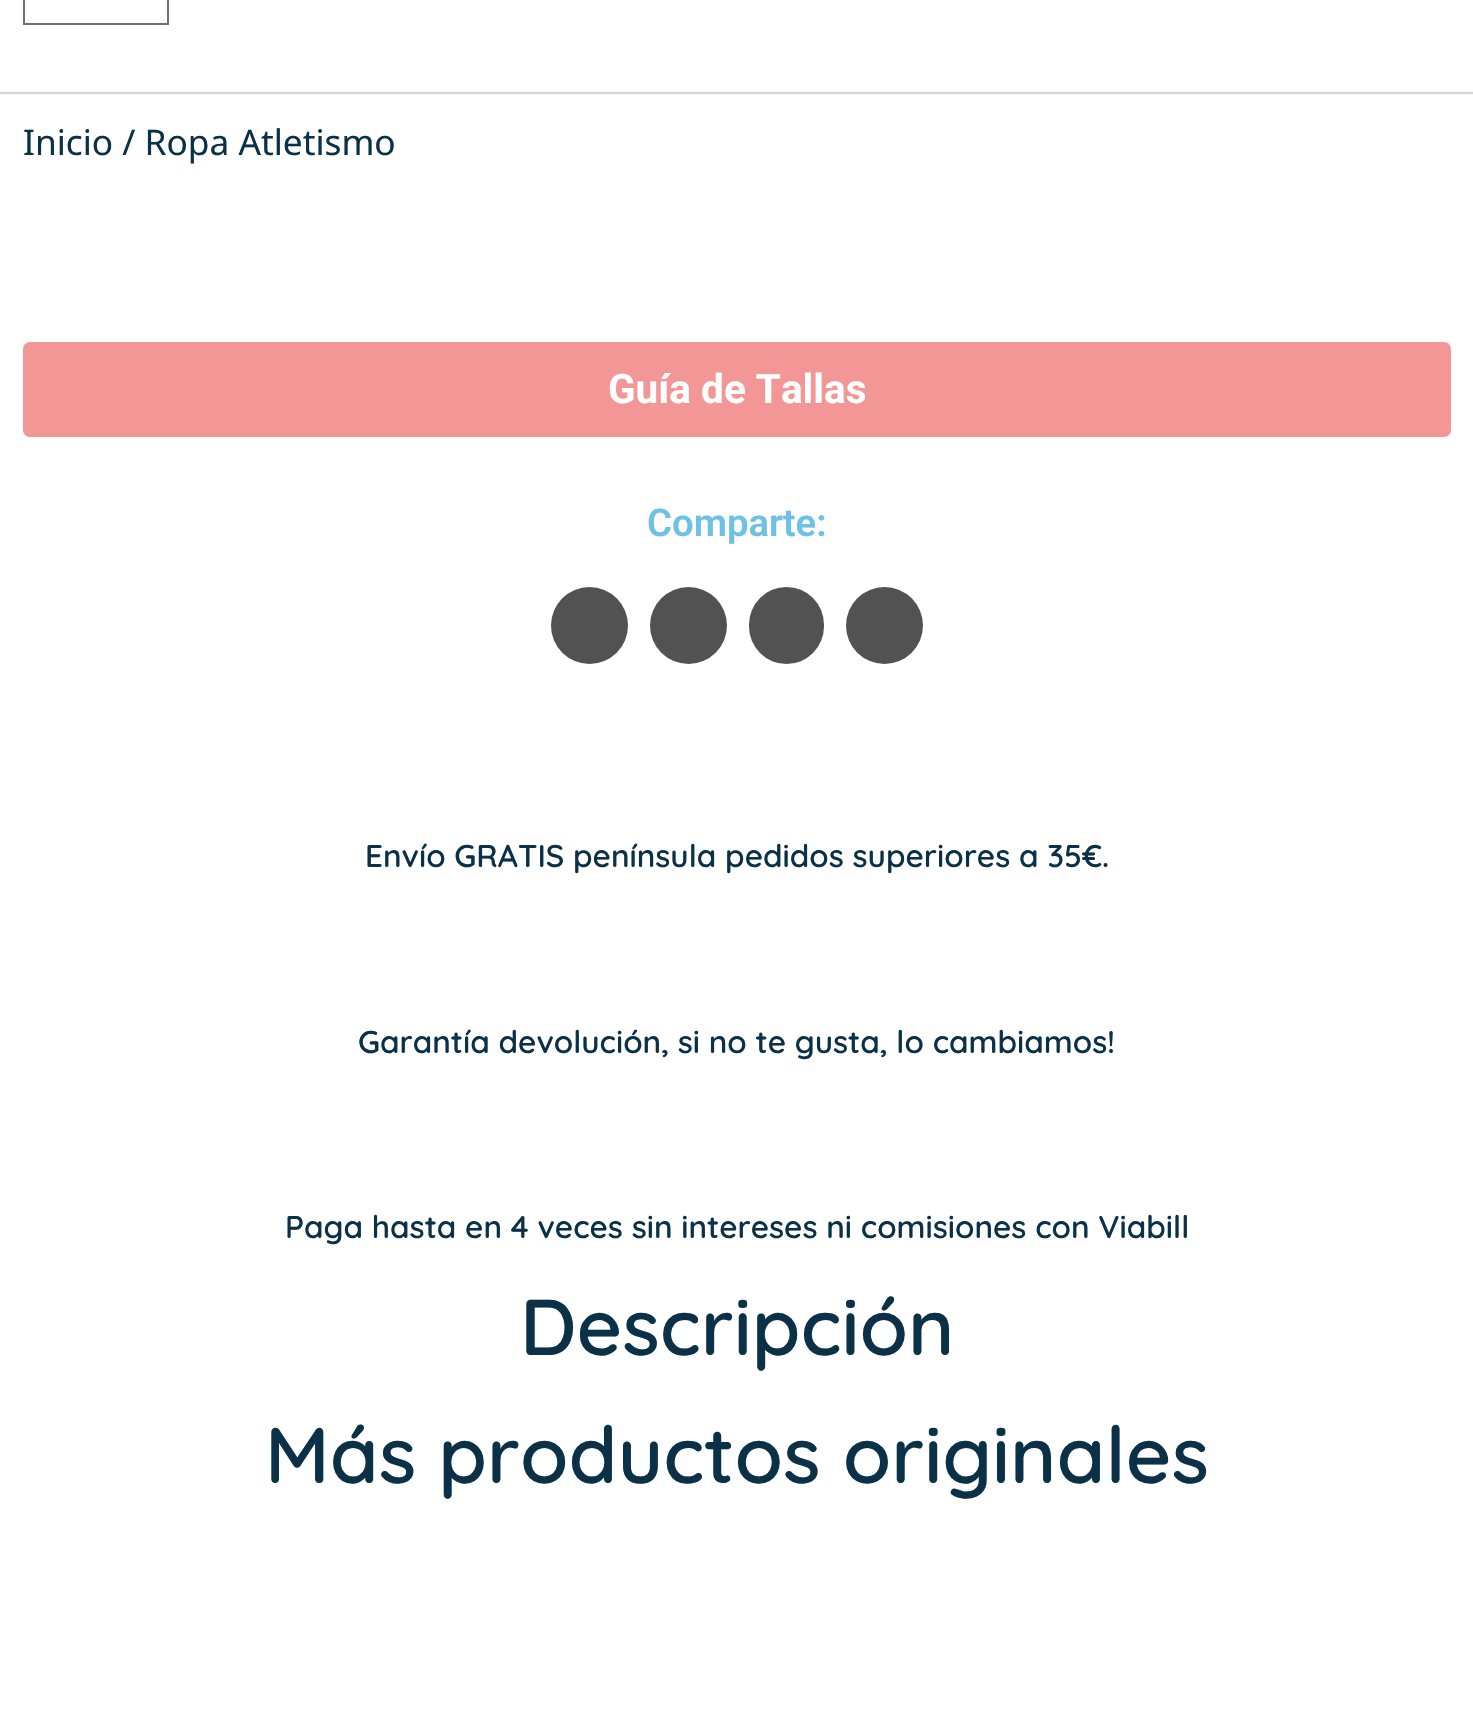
#include "include/core/SkBlurTypes.h"
#include "include/core/SkCanvas.h"
#include "include/core/SkData.h"
#include "include/core/SkFont.h"
#include "include/core/SkFontMgr.h"
#include "include/core/SkImage.h"
#include "include/core/SkMaskFilter.h"
#include "include/core/SkPaint.h"
#include "include/core/SkPathBuilder.h"
#include "include/core/SkTextBlob.h"
#include "include/effects/SkDashPathEffect.h"
#include "include/effects/SkGradientShader.h"
#include "include/utils/SkParsePath.h"

extern sk_sp<SkFontMgr> fontMgr;

void draw(SkCanvas* canvas) {
    SkPaint p;
    p.setAntiAlias(true);
    auto font = [&](const char* family, int weight, float size, bool italic = false) {
        SkFontStyle style(weight, SkFontStyle::kNormal_Width,
            italic ? SkFontStyle::kItalic_Slant : SkFontStyle::kUpright_Slant);
        SkFont result(fontMgr->matchFamilyStyle(family, style), size);
        result.setSubpixel(true);
        return result;
    };
    canvas->clear(0xFFF7F8F9);
    p.setColor(0xFFFFFFFF);
    canvas->drawRect(SkRect::MakeLTRB(0, 0, 1473, 92), p);
    p.setColor(0xFFD4D4D4);
    canvas->drawRect(SkRect::MakeLTRB(0, 92, 1473, 94), p);
    p.setStyle(SkPaint::kStroke_Style);
    p.setStrokeWidth(2);
    p.setColor(0xFF69727D);
    canvas->drawRect(SkRect::MakeLTRB(24, -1, 168, 24), p);
    p.setStyle(SkPaint::kFill_Style);
    p.setColor(0xFFFFFFFF);
    canvas->drawRect(SkRect::MakeLTRB(0, 95, 1473, 1731), p);
    auto font1 = font("Noto Sans", 400, 35.25f);
    p.setColor(0xFF0A3147);
    canvas->drawString("Inicio / Ropa Atletismo", 23, 155, font1, p);
    p.setColor(0xFFF29696);
    canvas->drawRoundRect(SkRect::MakeLTRB(23, 342, 1451, 437), 7, 7, p);
    auto font2 = font("Roboto", 700, 40.5f);
    p.setColor(0xFFFFFFFF);
    canvas->drawString("Guía de Tallas", 608, 403, font2, p);
    auto font3 = font("Roboto", 600, 38.25f);
    p.setColor(0xFF6EC1E4);
    canvas->drawString("Comparte:", 647, 536, font3, p);
    p.setColor(0xFF525252);
    canvas->drawCircle(589.5f, 625.5f, 38.5f, p);
    canvas->drawCircle(688.5f, 625.5f, 38.5f, p);
    canvas->drawRoundRect(SkRect::MakeLTRB(749, 587, 824, 664), 37.5f, 37.5f, p);
    canvas->drawCircle(884.5f, 625.5f, 38.5f, p);
    auto font4 = font("Quicksand", 600, 31.5f);
    p.setColor(0xFF0A3147);
    {
        const struct { const char* s; float x, y; } items[] = {
            {"Envío GRATIS península pedidos superiores a 35€.", 365, 867},
            {"Garantía devolución, si no te gusta, lo cambiamos!", 358, 1053},
            {"Paga hasta en 4 veces sin intereses ni comisiones con Viabill", 285, 1238},
        };
        for (auto [s, x, y] : items) {
            canvas->drawString(s, x, y, font4, p);
        }
    }
    auto font5 = font("Quicksand", 600, 78.75f);
    canvas->drawString("Descripción", 520, 1355, font5, p);
    canvas->drawString("Más productos originales", 265, 1483, font5, p);
}
